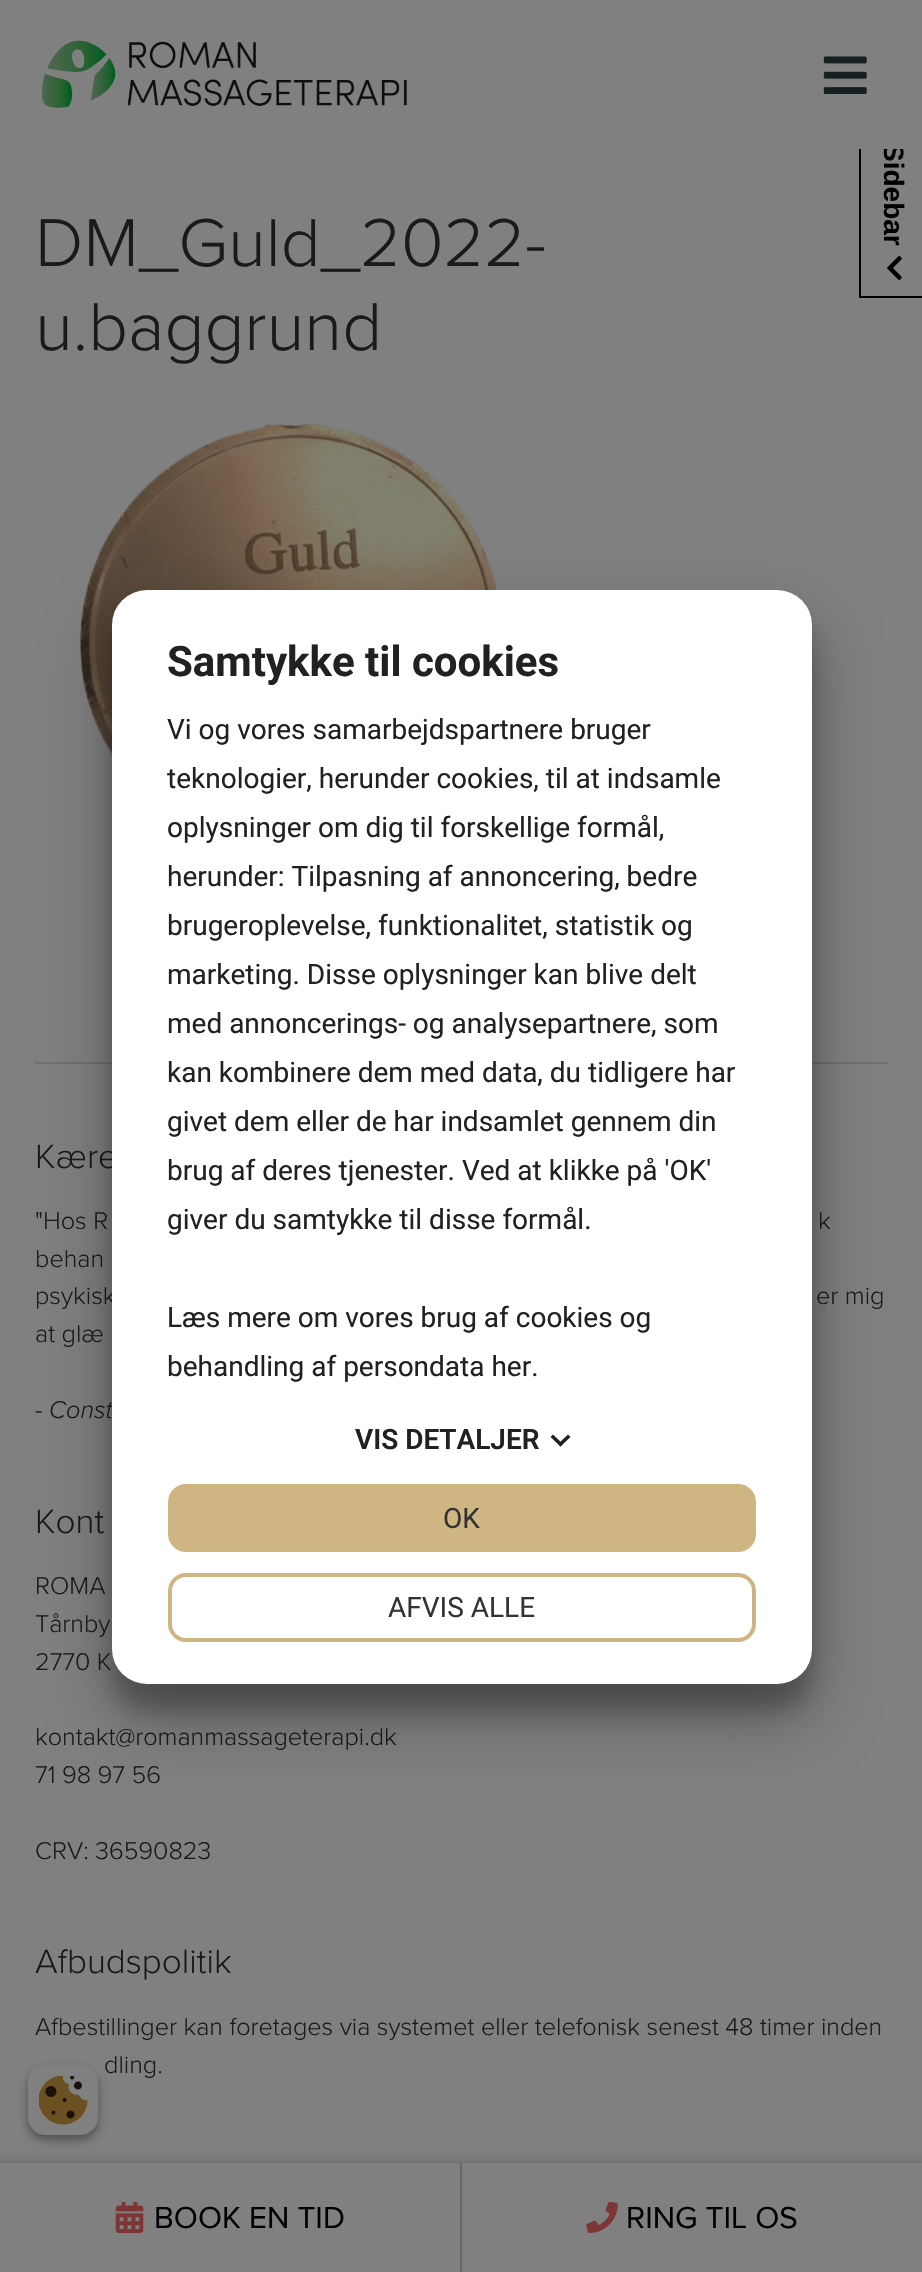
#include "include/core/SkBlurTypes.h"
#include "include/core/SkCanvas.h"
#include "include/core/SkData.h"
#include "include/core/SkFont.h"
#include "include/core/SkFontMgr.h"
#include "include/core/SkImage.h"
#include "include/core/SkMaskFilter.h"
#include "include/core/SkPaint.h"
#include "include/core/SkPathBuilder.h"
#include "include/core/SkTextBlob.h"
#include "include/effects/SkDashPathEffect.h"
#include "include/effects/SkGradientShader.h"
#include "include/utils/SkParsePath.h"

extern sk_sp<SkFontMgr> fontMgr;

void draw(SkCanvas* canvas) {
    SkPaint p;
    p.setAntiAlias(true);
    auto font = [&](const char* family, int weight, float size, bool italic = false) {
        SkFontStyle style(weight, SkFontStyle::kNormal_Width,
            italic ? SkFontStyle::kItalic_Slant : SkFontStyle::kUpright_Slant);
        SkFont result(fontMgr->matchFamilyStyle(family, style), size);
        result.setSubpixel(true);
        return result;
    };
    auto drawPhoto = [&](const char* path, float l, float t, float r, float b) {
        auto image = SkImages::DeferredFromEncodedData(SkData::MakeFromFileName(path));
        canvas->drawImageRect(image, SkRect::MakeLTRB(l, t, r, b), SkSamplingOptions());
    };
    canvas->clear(0xFF808080);
    auto font1 = font("Liberation Sans", 700, 28);
    p.setColor(0xFF000000);
    canvas->save();
    canvas->rotate(90, 884, 143);
    canvas->drawString("Sidebar", 884, 143, font1, p);
    canvas->restore();
    p.setColor(0xFF808080);
    canvas->drawRect(SkRect::MakeLTRB(884, 143, 904, 149), p);
    drawPhoto("media/1.png", 41, 40, 407, 108);
    drawPhoto("media/2.png", 823, 56, 867, 94);
    p.setColor(0xFF000000);
    canvas->drawRect(SkRect::MakeLTRB(859, 296, 922, 298), p);
    canvas->drawRect(SkRect::MakeLTRB(859, 149, 861, 298), p);
    drawPhoto("media/3.png", 887, 256, 902, 280);
    auto font2 = font("Proxima Nova", 300, 70);
    p.setColor(0xFF1A1A1A);
    canvas->drawString("DM_Guld_2022-", 35, 266, font2, p);
    canvas->drawString("u.baggrund", 35, 350, font2, p);
    drawPhoto("media/4.png", 79, 424, 498, 757);
    p.setColor(0xFF707070);
    canvas->drawRect(SkRect::MakeLTRB(35, 1062, 887, 1064), p);
    auto font3 = font("Proxima Nova", 300, 35);
    p.setColor(0xFF1A1A1A);
    canvas->drawString("Kære", 35, 1168, font3, p);
    auto font4 = font("Proxima Nova", 300, 25.2f);
    {
        const struct { const char* s; float x, y; } items[] = {
            {"\"Hos R", 35, 1229},
            {"k", 818, 1229},
            {"behan", 35, 1267},
            {"psykisk", 35, 1304},
            {"er mig", 816, 1304},
            {"at glæ", 35, 1342},
        };
        for (auto [s, x, y] : items) {
            canvas->drawString(s, x, y, font4, p);
        }
    }
    auto font5 = font("Proxima Nova", 300, 25.2f, true);
    canvas->drawString("- Const", 35, 1418, font5, p);
    canvas->drawString("Kont", 35, 1533, font3, p);
    {
        const struct { const char* s; float x, y; } items[] = {
            {"ROMA", 35, 1594},
            {"Tårnby", 35, 1632},
            {"2770 K", 35, 1670},
            {"kontakt@romanmassageterapi.dk", 35, 1745},
            {"71 98 97 56", 35, 1783},
            {"CRV: 36590823", 35, 1859},
        };
        for (auto [s, x, y] : items) {
            canvas->drawString(s, x, y, font4, p);
        }
    }
    canvas->drawString("Afbudspolitik", 35, 1973, font3, p);
    canvas->drawString("Afbestillinger kan foretages via systemet eller telefonisk senest 48 timer inden", 35, 2035, font4, p);
    canvas->drawString("dling.", 104, 2073, font4, p);
    p.setColor(0x38000000);
    p.setMaskFilter(SkMaskFilter::MakeBlur(kNormal_SkBlurStyle, 10.5f));
    canvas->drawRoundRect(SkRect::MakeLTRB(112, 616, 812, 1710), 35, 35, p);
    p.setMaskFilter(nullptr);
    p.setColor(0x4D000000);
    p.setMaskFilter(SkMaskFilter::MakeBlur(kNormal_SkBlurStyle, 33));
    canvas->drawRoundRect(SkRect::MakeLTRB(112, 623, 812, 1717), 35, 35, p);
    p.setMaskFilter(nullptr);
    p.setColor(0xFFFFFFFF);
    canvas->drawRoundRect(SkRect::MakeLTRB(112, 590, 812, 1684), 35, 35, p);
    auto font6 = font("Roboto", 700, 42);
    p.setColor(0xFF212121);
    canvas->drawString("Samtykke til cookies", 167, 676, font6, p);
    auto font7 = font("Roboto", 400, 28);
    {
        const struct { const char* s; float x, y; } items[] = {
            {"Vi og vores samarbejdspartnere bruger", 167, 739},
            {"teknologier, herunder cookies, til at indsamle", 167, 788},
            {"oplysninger om dig til forskellige formål,", 167, 837},
            {"herunder: Tilpasning af annoncering, bedre", 167, 886},
            {"brugeroplevelse, funktionalitet, statistik og", 167, 935},
            {"marketing. Disse oplysninger kan blive delt", 167, 984},
            {"med annoncerings- og analysepartnere, som", 167, 1033},
            {"kan kombinere dem med data, du tidligere har", 167, 1082},
            {"givet dem eller de har indsamlet gennem din", 167, 1131},
            {"brug af deres tjenester. Ved at klikke på 'OK'", 167, 1180},
            {"giver du samtykke til disse formål.", 167, 1229},
            {"Læs mere om vores brug af cookies og", 167, 1327},
            {"behandling af persondata her.", 167, 1376},
        };
        for (auto [s, x, y] : items) {
            canvas->drawString(s, x, y, font7, p);
        }
    }
    auto font8 = font("Roboto", 600, 28);
    canvas->drawString("VIS DETALJER", 355, 1449, font8, p);
    canvas->drawPath(SkPathBuilder().moveTo(568, 1434.5f).lineTo(570.5f, 1437).lineTo(560.5f, 1446.5f).lineTo(558, 1444).close().detach(), p);
    canvas->drawPath(SkPathBuilder().moveTo(553, 1434.5f).lineTo(563, 1444).lineTo(560.5f, 1446.5f).lineTo(550.5f, 1437).close().detach(), p);
    p.setColor(0xFFCEB582);
    canvas->drawRoundRect(SkRect::MakeLTRB(170, 1486, 754, 1550), 16, 16, p);
    p.setStyle(SkPaint::kStroke_Style);
    p.setStrokeWidth(4);
    canvas->drawRoundRect(SkRect::MakeLTRB(170, 1486, 754, 1550), 16, 16, p);
    p.setStyle(SkPaint::kFill_Style);
    p.setColor(0xFF333333);
    canvas->drawString("OK", 443, 1528, font7, p);
    p.setStyle(SkPaint::kStroke_Style);
    p.setColor(0xFFCEB582);
    canvas->drawRoundRect(SkRect::MakeLTRB(170, 1575, 754, 1640), 16, 16, p);
    p.setStyle(SkPaint::kFill_Style);
    p.setColor(0xFF333333);
    canvas->drawString("AFVIS ALLE", 388, 1617, font7, p);
    p.setColor(0x3B000000);
    p.setMaskFilter(SkMaskFilter::MakeBlur(kNormal_SkBlurStyle, 5));
    canvas->drawRoundRect(SkRect::MakeLTRB(28, 2070, 98, 2140), 18, 18, p);
    p.setMaskFilter(nullptr);
    p.setColor(0x29000000);
    p.setMaskFilter(SkMaskFilter::MakeBlur(kNormal_SkBlurStyle, 5));
    canvas->drawRoundRect(SkRect::MakeLTRB(28, 2070, 98, 2140), 18, 18, p);
    p.setMaskFilter(nullptr);
    p.setColor(0xFF808080);
    canvas->drawRoundRect(SkRect::MakeLTRB(28, 2065, 98, 2135), 18, 18, p);
    drawPhoto("media/5.png", 39, 2076, 88, 2125);
    p.setColor(0xFF000000);
    p.setMaskFilter(SkMaskFilter::MakeBlur(kNormal_SkBlurStyle, 9));
    canvas->drawRect(SkRect::MakeLTRB(-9, 2174, 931, 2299), p);
    p.setMaskFilter(nullptr);
    p.setColor(0xFF808080);
    canvas->drawRect(SkRect::MakeLTRB(0, 2163, 922, 2272), p);
    p.setColor(0xFF666666);
    canvas->drawRect(SkRect::MakeLTRB(460, 2163, 462, 2272), p);
    drawPhoto("media/6.png", 115, 2202, 144, 2233);
    auto font9 = font("Proxima Nova", 400, 31.5f);
    p.setColor(0xFF000000);
    canvas->drawString("BOOK EN TID", 154, 2228, font9, p);
    drawPhoto("media/7.png", 586, 2202, 618, 2233);
    canvas->drawString("RING TIL OS", 626, 2228, font9, p);
}
